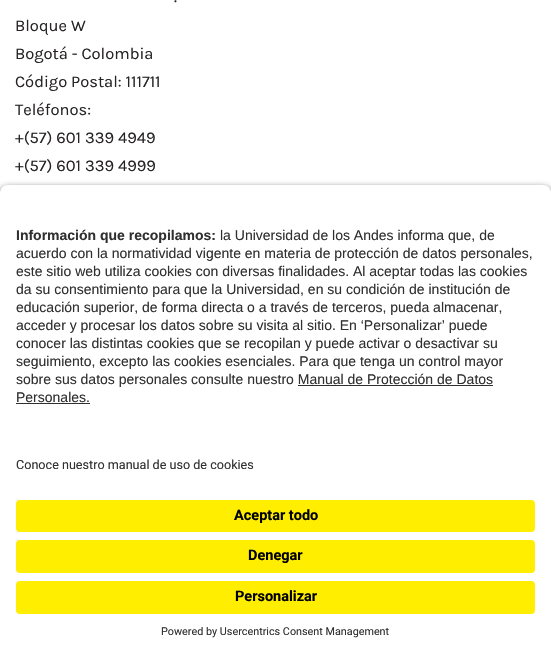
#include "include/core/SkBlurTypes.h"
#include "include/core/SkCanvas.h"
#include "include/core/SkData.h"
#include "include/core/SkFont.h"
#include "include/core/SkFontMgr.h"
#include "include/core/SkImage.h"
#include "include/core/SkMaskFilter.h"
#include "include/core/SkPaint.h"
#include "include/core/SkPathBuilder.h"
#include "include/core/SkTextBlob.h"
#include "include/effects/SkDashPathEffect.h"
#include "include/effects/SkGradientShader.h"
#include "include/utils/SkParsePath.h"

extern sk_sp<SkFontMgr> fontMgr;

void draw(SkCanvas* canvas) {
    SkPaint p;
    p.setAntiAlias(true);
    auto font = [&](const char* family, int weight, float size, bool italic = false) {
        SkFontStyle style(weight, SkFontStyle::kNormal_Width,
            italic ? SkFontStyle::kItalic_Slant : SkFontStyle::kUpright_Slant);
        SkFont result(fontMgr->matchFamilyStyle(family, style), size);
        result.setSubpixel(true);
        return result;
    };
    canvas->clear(0xFFFFFFFF);
    auto font1 = font("Karla", 400, 16.5f);
    p.setColor(0xFF272424);
    {
        const struct { const char* s; float x, y; } items[] = {
            {".", 174, 2},
            {"Bloque W", 15, 31},
            {"Bogotá - Colombia", 15, 59},
            {"Código Postal: 111711", 15, 87},
            {"Teléfonos:", 15, 115},
            {"+(57) 601 339 4949", 15, 143},
            {"+(57) 601 339 4999", 15, 171},
        };
        for (auto [s, x, y] : items) {
            canvas->drawString(s, x, y, font1, p);
        }
    }
    p.setColor(0xCC000000);
    p.setMaskFilter(SkMaskFilter::MakeBlur(kNormal_SkBlurStyle, 3.5f));
    canvas->drawRoundRect(SkRect::MakeLTRB(0, 188, 551, 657), 8, 8, p);
    p.setMaskFilter(nullptr);
    p.setColor(0xFFFFFFFF);
    canvas->drawPath(SkPathBuilder().moveTo(8, 185).lineTo(543, 185).cubicTo(547.5f, 185, 551, 188.5f, 551, 193).lineTo(551, 442).lineTo(0, 442).lineTo(0, 193).cubicTo(0, 188.5f, 3.5f, 185, 8, 185).close().detach(), p);
    auto font2 = font("Liberation Sans", 700, 14);
    p.setColor(0xFF303030);
    canvas->drawString("Información que recopilamos:", 16, 240, font2, p);
    auto font3 = font("Liberation Sans", 400, 14);
    {
        const struct { const char* s; float x, y; } items[] = {
            {"la Universidad de los Andes informa que, de", 220, 240},
            {"acuerdo con la normatividad vigente en materia de protección de datos personales,", 16, 258},
            {"este sitio web utiliza cookies con diversas finalidades. Al aceptar todas las cookies", 16, 276},
            {"da su consentimiento para que la Universidad, en su condición de institución de", 16, 294},
            {"educación superior, de forma directa o a través de terceros, pueda almacenar,", 16, 312},
            {"acceder y procesar los datos sobre su visita al sitio. En ‘Personalizar’ puede", 16, 330},
            {"conocer las distintas cookies que se recopilan y puede activar o desactivar su", 16, 348},
            {"seguimiento, excepto las cookies esenciales. Para que tenga un control mayor", 16, 366},
            {"sobre sus datos personales consulte nuestro Manual de Protección de Datos", 16, 384},
            {"Personales.", 16, 402},
        };
        for (auto [s, x, y] : items) {
            canvas->drawString(s, x, y, font3, p);
        }
    }
    {
        const struct { float l, t, r, b; SkColor color; } items[] = {
            {298, 385, 493, 386, 0xFF303030},
            {16, 403, 90, 404, 0xFF303030},
            {0, 442, 551, 654, 0xFFFFFFFF},
        };
        for (auto [l, t, r, b, color] : items) {
            p.setColor(color);
            canvas->drawRect(SkRect::MakeLTRB(l, t, r, b), p);
        }
    }
    auto font4 = font("Roboto", 400, 12.6f);
    p.setColor(0xFF303030);
    canvas->drawString("Conoce nuestro manual de uso de cookies", 16, 469, font4, p);
    p.setColor(0xFFFFEE00);
    canvas->drawRoundRect(SkRect::MakeLTRB(16, 500, 535, 532), 4, 4, p);
    auto font5 = font("Roboto", 700, 14.5f);
    p.setColor(0xFF000000);
    canvas->drawString("Aceptar todo", 234, 520, font5, p);
    p.setColor(0xFFFFEE00);
    canvas->drawRoundRect(SkRect::MakeLTRB(16, 540, 535, 573), 4, 4, p);
    p.setColor(0xFF000000);
    canvas->drawString("Denegar", 248, 560, font5, p);
    p.setColor(0xFFFFEE00);
    canvas->drawRoundRect(SkRect::MakeLTRB(16, 581, 535, 614), 4, 4, p);
    p.setColor(0xFF000000);
    canvas->drawString("Personalizar", 235, 601, font5, p);
    auto font6 = font("Roboto", 400, 10.8f);
    p.setColor(0xFF303030);
    canvas->drawString("Powered by Usercentrics Consent Management", 161, 635, font6, p);
}
